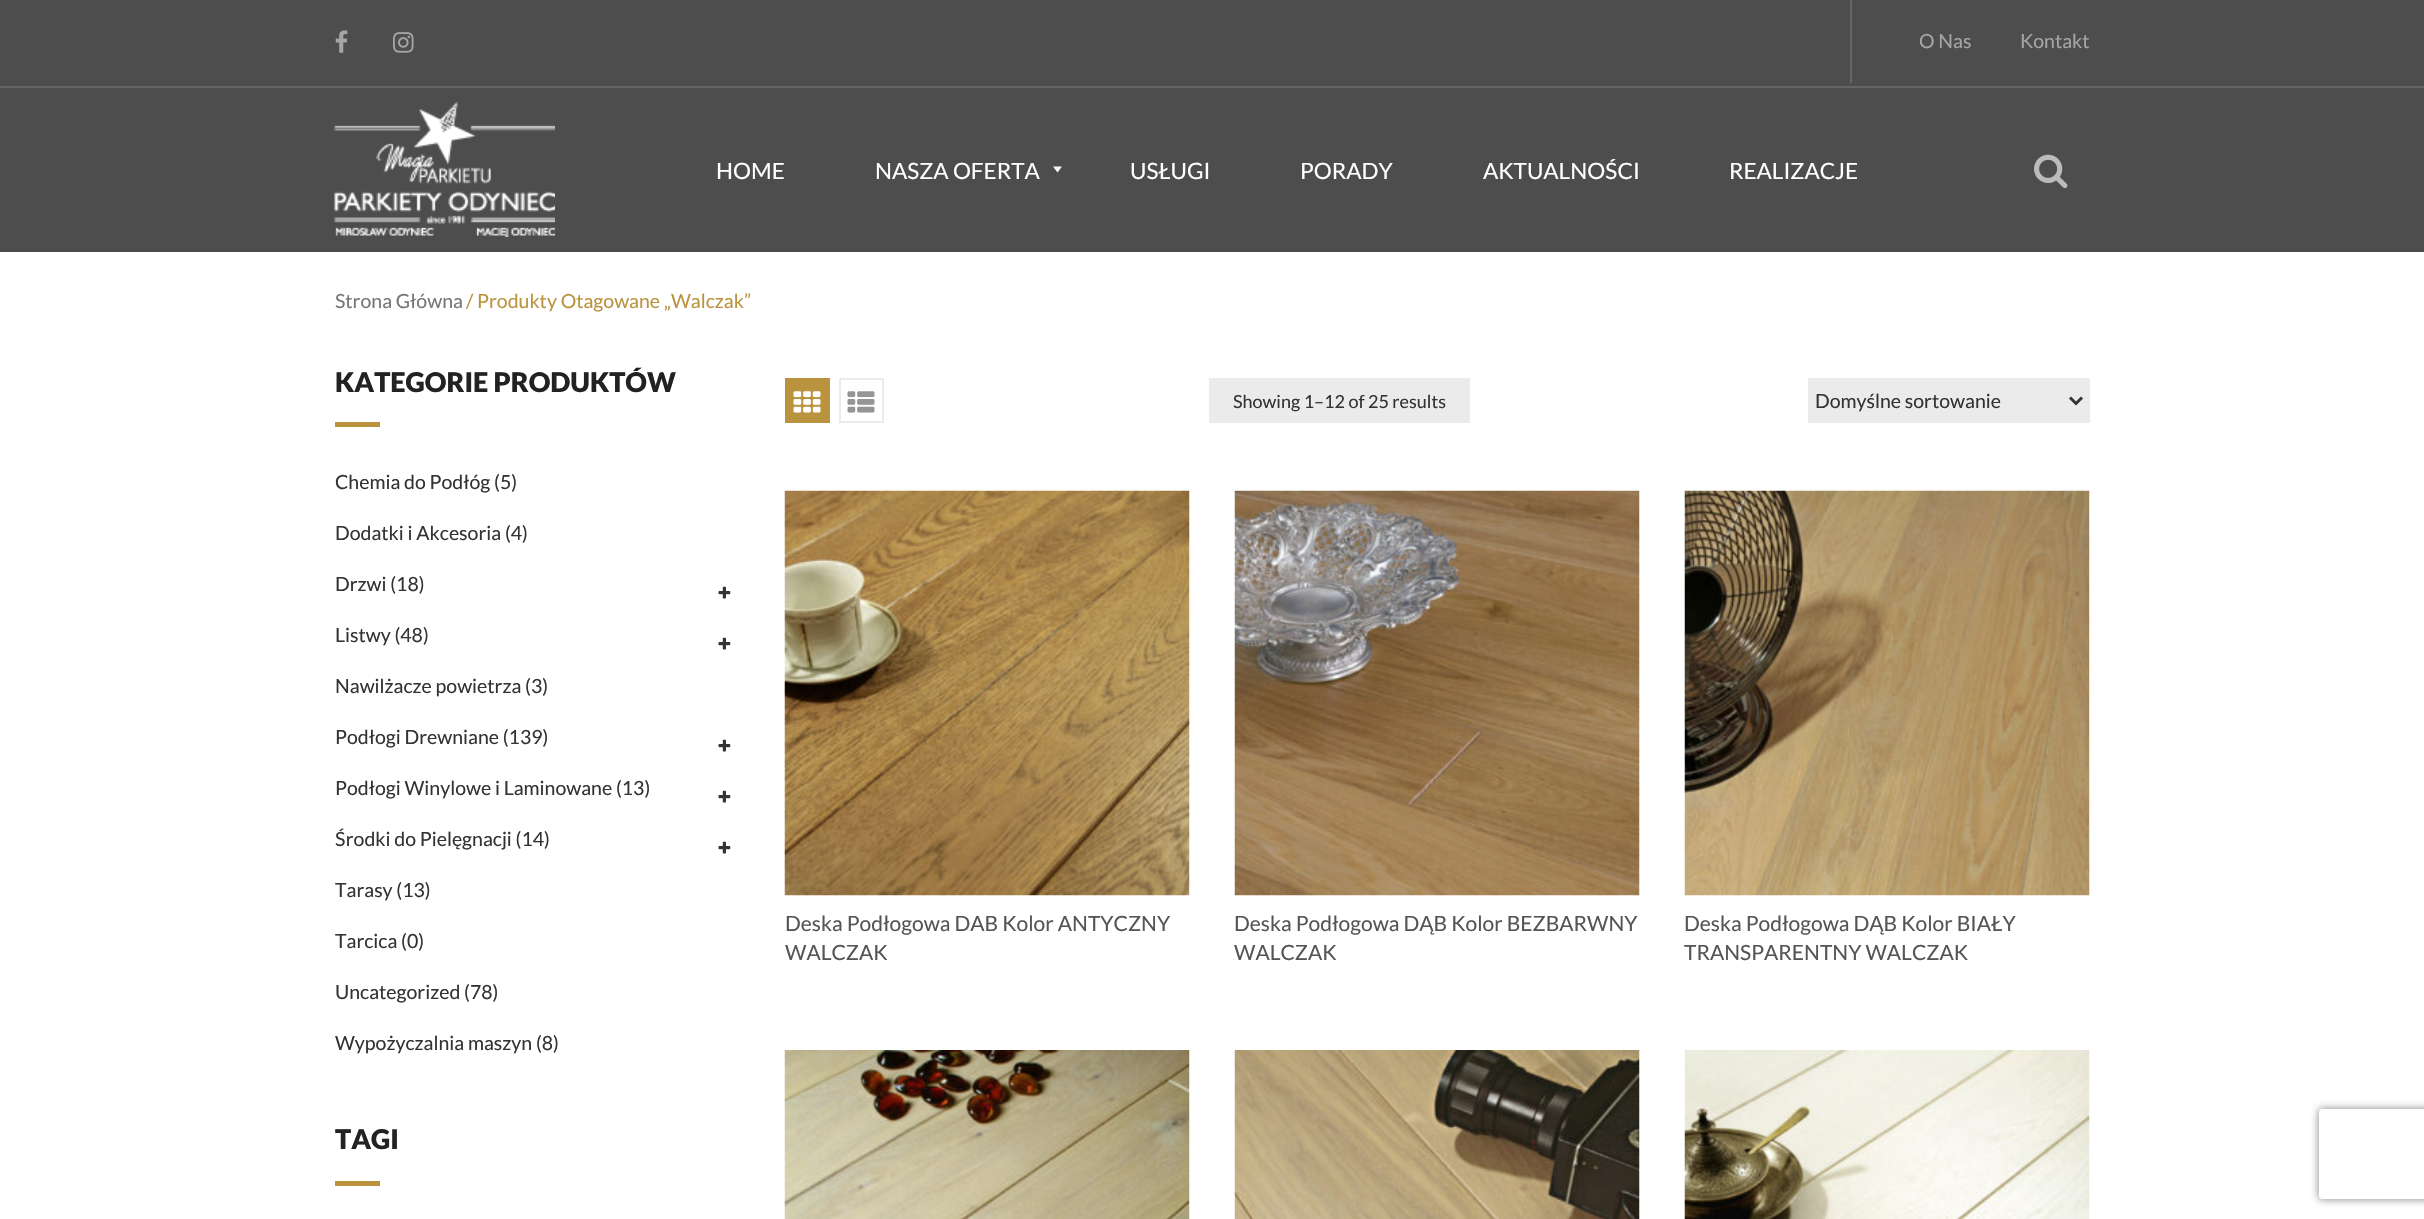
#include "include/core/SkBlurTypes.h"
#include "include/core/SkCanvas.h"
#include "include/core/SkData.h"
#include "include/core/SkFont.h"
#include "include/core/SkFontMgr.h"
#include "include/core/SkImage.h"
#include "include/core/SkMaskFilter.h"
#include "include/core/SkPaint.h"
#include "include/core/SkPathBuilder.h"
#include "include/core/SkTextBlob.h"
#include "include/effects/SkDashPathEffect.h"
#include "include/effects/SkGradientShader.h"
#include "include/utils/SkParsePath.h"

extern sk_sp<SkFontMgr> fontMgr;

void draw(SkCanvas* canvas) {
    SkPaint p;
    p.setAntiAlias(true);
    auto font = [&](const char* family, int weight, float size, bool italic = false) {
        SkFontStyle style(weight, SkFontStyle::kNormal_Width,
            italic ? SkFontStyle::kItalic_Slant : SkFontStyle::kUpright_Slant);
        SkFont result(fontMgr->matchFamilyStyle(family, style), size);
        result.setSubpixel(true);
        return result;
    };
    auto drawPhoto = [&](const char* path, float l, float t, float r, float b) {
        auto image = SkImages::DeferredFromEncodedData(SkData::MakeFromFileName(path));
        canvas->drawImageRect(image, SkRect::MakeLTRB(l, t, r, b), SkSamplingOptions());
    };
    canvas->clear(0xFFFFFFFF);
    p.setColor(0xFF4D4D4D);
    canvas->drawRect(SkRect::MakeLTRB(0, 0, 2424, 252), p);
    p.setColor(0xFF666666);
    canvas->drawRect(SkRect::MakeLTRB(0, 86, 2424, 88), p);
    drawPhoto("media/1.png", 335, 30, 348, 53);
    drawPhoto("media/2.png", 393, 32, 414, 53);
    canvas->drawRect(SkRect::MakeLTRB(1850, 0, 1852, 83), p);
    auto font1 = font("Lato", 400, 19.5f);
    p.setColor(0xFFA5A5A5);
    canvas->drawString("O Nas", 1919, 48, font1, p);
    canvas->drawString("Kontakt", 2020, 48, font1, p);
    drawPhoto("media/3.png", 334, 102, 555, 237);
    auto font2 = font("Lato", 400, 22.5f);
    p.setColor(0xFFFFFFFF);
    canvas->drawString("HOME", 716, 179, font2, p);
    canvas->drawString("NASZA OFERTA", 875, 179, font2, p);
    p.setColor(0xFFF8F8F8);
    canvas->drawPath(SkPathBuilder().moveTo(1053, 166.5f).lineTo(1062, 166.5f).lineTo(1057.5f, 172.5f).close().detach(), p);
    p.setColor(0xFFFFFFFF);
    {
        const struct { const char* s; float x, y; } items[] = {
            {"USŁUGI", 1130, 179},
            {"PORADY", 1300, 179},
            {"AKTUALNOŚCI", 1483, 179},
            {"REALIZACJE", 1729, 179},
        };
        for (auto [s, x, y] : items) {
            canvas->drawString(s, x, y, font2, p);
        }
    }
    drawPhoto("media/4.png", 2034, 154, 2068, 189);
    p.setColor(0xFF767676);
    canvas->drawString("Strona Główna", 335, 308, font1, p);
    p.setColor(0xFFBA933E);
    canvas->drawString("/ Produkty Otagowane „Walczak”", 466, 308, font1, p);
    auto font3 = font("Lato", 900, 27);
    p.setColor(0xFF222222);
    canvas->drawString("KATEGORIE PRODUKTÓW", 335, 392, font3, p);
    p.setColor(0xFFBA933E);
    canvas->drawRect(SkRect::MakeLTRB(335, 422, 380, 427), p);
    p.setColor(0xFF333333);
    {
        const struct { const char* s; float x, y; } items[] = {
            {"Chemia do Podłóg (5)", 335, 489},
            {"Dodatki i Akcesoria (4)", 335, 540},
            {"Drzwi (18)", 335, 591},
        };
        for (auto [s, x, y] : items) {
            canvas->drawString(s, x, y, font1, p);
        }
    }
    drawPhoto("media/5.png", 718, 586, 731, 599);
    canvas->drawString("Listwy (48)", 335, 642, font1, p);
    drawPhoto("media/5.png", 718, 637, 731, 650);
    canvas->drawString("Nawilżacze powietrza (3)", 335, 693, font1, p);
    canvas->drawString("Podłogi Drewniane (139)", 335, 744, font1, p);
    drawPhoto("media/5.png", 718, 739, 731, 752);
    canvas->drawString("Podłogi Winylowe i Laminowane (13)", 335, 795, font1, p);
    drawPhoto("media/5.png", 718, 790, 731, 803);
    canvas->drawString("Środki do Pielęgnacji (14)", 335, 846, font1, p);
    drawPhoto("media/5.png", 718, 841, 731, 854);
    {
        const struct { const char* s; float x, y; } items[] = {
            {"Tarasy (13)", 335, 897},
            {"Tarcica (0)", 335, 948},
            {"Uncategorized (78)", 335, 999},
            {"Wypożyczalnia maszyn (8)", 335, 1050},
        };
        for (auto [s, x, y] : items) {
            canvas->drawString(s, x, y, font1, p);
        }
    }
    p.setColor(0xFF222222);
    canvas->drawString("TAGI", 335, 1149, font3, p);
    p.setColor(0xFFBA933E);
    canvas->drawRect(SkRect::MakeLTRB(335, 1181, 380, 1186), p);
    canvas->drawRect(SkRect::MakeLTRB(785, 378, 830, 423), p);
    drawPhoto("media/6.png", 793, 391, 821, 413);
    p.setStyle(SkPaint::kStroke_Style);
    p.setStrokeWidth(2);
    p.setColor(0xFFEBEBEB);
    canvas->drawRect(SkRect::MakeLTRB(840, 379, 883, 422), p);
    drawPhoto("media/7.png", 847, 391, 875, 413);
    p.setStyle(SkPaint::kFill_Style);
    canvas->drawRect(SkRect::MakeLTRB(1209, 378, 1470, 423), p);
    auto font4 = font("Lato", 400, 18);
    p.setColor(0xFF333333);
    canvas->drawString("Showing 1–12 of 25 results", 1233, 408, font4, p);
    p.setColor(0xFFEBEBEB);
    canvas->drawRect(SkRect::MakeLTRB(1808, 378, 2090, 423), p);
    p.setStyle(SkPaint::kStroke_Style);
    p.setStrokeWidth(3);
    p.setColor(0xFF333333);
    canvas->drawPath(SkPathBuilder().moveTo(2070, 397.5f).lineTo(2076, 403.5f).lineTo(2082, 397.5f).detach(), p);
    p.setStyle(SkPaint::kFill_Style);
    canvas->drawString("Domyślne sortowanie", 1815, 408, font1, p);
    drawPhoto("media/8.png", 784, 490, 1190, 896);
    auto font5 = font("Lato", 400, 21);
    p.setColor(0xFF555555);
    canvas->drawString("Deska Podłogowa DAB Kolor ANTYCZNY", 785, 931, font5, p);
    canvas->drawString("WALCZAK", 785, 960, font5, p);
    drawPhoto("media/9.png", 1234, 490, 1640, 896);
    canvas->drawString("Deska Podłogowa DĄB Kolor BEZBARWNY", 1234, 931, font5, p);
    canvas->drawString("WALCZAK", 1234, 960, font5, p);
    drawPhoto("media/10.png", 1684, 490, 2090, 896);
    canvas->drawString("Deska Podłogowa DĄB Kolor BIAŁY", 1684, 931, font5, p);
    canvas->drawString("TRANSPARENTNY WALCZAK", 1684, 960, font5, p);
    drawPhoto("media/11.png", 784, 1050, 1190, 1219);
    drawPhoto("media/12.png", 1234, 1050, 1640, 1219);
    drawPhoto("media/13.png", 1684, 1050, 2090, 1219);
    canvas->save();
    canvas->clipPath(SkPathBuilder(SkPathFillType::kEvenOdd).moveTo(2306, 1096).lineTo(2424, 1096).lineTo(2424, 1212).lineTo(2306, 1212).close().moveTo(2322, 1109).lineTo(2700, 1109).cubicTo(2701.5f, 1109, 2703, 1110.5f, 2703, 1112).lineTo(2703, 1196).cubicTo(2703, 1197.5f, 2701.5f, 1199, 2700, 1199).lineTo(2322, 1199).cubicTo(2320.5f, 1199, 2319, 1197.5f, 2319, 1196).lineTo(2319, 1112).cubicTo(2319, 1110.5f, 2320.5f, 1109, 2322, 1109).close().detach(), true);
    p.setColor(0xFF808080);
    p.setMaskFilter(SkMaskFilter::MakeBlur(kNormal_SkBlurStyle, 4));
    canvas->drawRoundRect(SkRect::MakeLTRB(2319, 1109, 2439, 1199), 3, 3, p);
    p.setMaskFilter(nullptr);
    canvas->restore();
}
